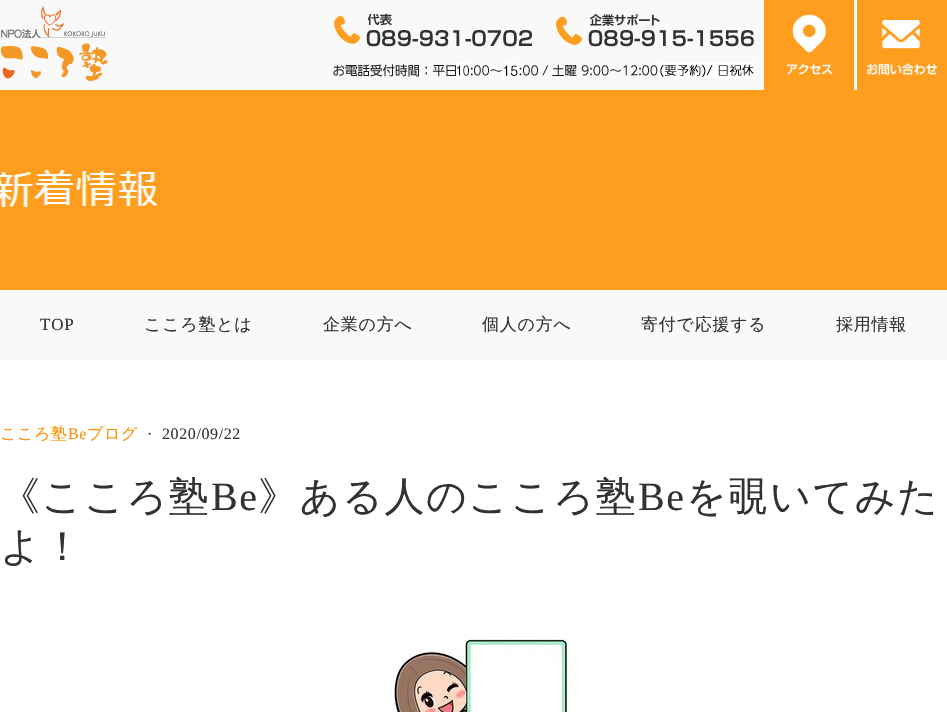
#include "include/core/SkBlurTypes.h"
#include "include/core/SkCanvas.h"
#include "include/core/SkData.h"
#include "include/core/SkFont.h"
#include "include/core/SkFontMgr.h"
#include "include/core/SkImage.h"
#include "include/core/SkMaskFilter.h"
#include "include/core/SkPaint.h"
#include "include/core/SkPathBuilder.h"
#include "include/core/SkTextBlob.h"
#include "include/effects/SkDashPathEffect.h"
#include "include/effects/SkGradientShader.h"
#include "include/utils/SkParsePath.h"

extern sk_sp<SkFontMgr> fontMgr;

void draw(SkCanvas* canvas) {
    SkPaint p;
    p.setAntiAlias(true);
    auto font = [&](const char* family, int weight, float size, bool italic = false) {
        SkFontStyle style(weight, SkFontStyle::kNormal_Width,
            italic ? SkFontStyle::kItalic_Slant : SkFontStyle::kUpright_Slant);
        SkFont result(fontMgr->matchFamilyStyle(family, style), size);
        result.setSubpixel(true);
        return result;
    };
    auto drawTracked = [&](const char* s, float x, float y, const SkFont& font, const SkPaint& ink, float letter, float word) {
        std::vector<SkGlyphID> glyphs(font.countText(s, strlen(s), SkTextEncoding::kUTF8));
        std::vector<float> xs(glyphs.size());
        font.textToGlyphs(s, strlen(s), SkTextEncoding::kUTF8, glyphs);
        font.getXPos(glyphs, xs, x);
        float extra = 0;
        for (size_t i = 0; i < glyphs.size(); i++) {
            xs[i] += extra;
            extra += letter + word * (glyphs[i] == font.unicharToGlyph(' '));
        }
        canvas->drawTextBlob(SkTextBlob::MakeFromPosHGlyphs(glyphs, xs, y, font), 0, 0, ink);
    };
    auto drawPhoto = [&](const char* path, float l, float t, float r, float b) {
        auto image = SkImages::DeferredFromEncodedData(SkData::MakeFromFileName(path));
        canvas->drawImageRect(image, SkRect::MakeLTRB(l, t, r, b), SkSamplingOptions());
    };
    canvas->clear(0xFFF9F9F9);
    drawPhoto("media/1.png", 0, 90, 947, 290);
    drawPhoto("media/2.png", 0, 6, 108, 81);
    p.setColor(0xFFFF9D1E);
    canvas->drawRect(SkRect::MakeLTRB(764, 0, 854, 90), p);
    drawPhoto("media/3.png", 786, 14, 833, 75);
    canvas->drawRect(SkRect::MakeLTRB(857, 0, 947, 90), p);
    drawPhoto("media/4.png", 866, 20, 938, 76);
    auto font1 = font("Liberation Serif", 400, 17);
    p.setColor(0xFF323232);
    drawTracked("TOP", 40, 330, font1, p, 0.75f, 0);
    auto font2 = font("WenQuanYi Zen Hei", 500, 17);
    {
        const struct { const char* s; float x, y; } items[] = {
            {"こころ塾とは", 144, 330},
            {"企業の方へ", 323, 330},
            {"個人の方へ", 482, 330},
            {"寄付で応援する", 641, 330},
            {"採用情報", 836, 330},
        };
        for (auto [s, x, y] : items) {
            drawTracked(s, x, y, font2, p, 0.75f, 0);
        }
    }
    drawPhoto("media/5.png", 334, 13, 532, 47);
    drawPhoto("media/6.png", 556, 14, 754, 47);
    drawPhoto("media/7.png", 333, 62, 754, 79);
    p.setColor(0xFFFFFFFF);
    canvas->drawRect(SkRect::MakeLTRB(0, 360, 947, 712), p);
    auto font3 = font("WenQuanYi Zen Hei", 500, 16);
    p.setColor(0xFFFF9001);
    drawTracked("こころ塾", 0, 439, font3, p, 0.6f, 0);
    auto font4 = font("Liberation Serif", 400, 16);
    drawTracked("Be", 68, 439, font4, p, 0.6f, 0);
    drawTracked("ブログ", 87, 439, font3, p, 0.6f, 0);
    p.setColor(0xFF323232);
    drawTracked("·", 147, 439, font4, p, 0.6f, 0);
    drawTracked("2020/09/22", 162, 439, font4, p, 0.6f, 0);
    auto font5 = font("WenQuanYi Zen Hei", 500, 40);
    drawTracked("《こころ塾", 0, 510, font5, p, 1.5f, 0);
    auto font6 = font("Liberation Serif", 400, 40);
    drawTracked("Be", 211, 510, font6, p, 1.5f, 0);
    drawTracked("》ある人のこころ塾", 258, 510, font5, p, 1.5f, 0);
    drawTracked("Be", 638, 510, font6, p, 1.5f, 0);
    drawTracked("を覗いてみた", 686, 510, font5, p, 1.5f, 0);
    drawTracked("よ！", 0, 560, font5, p, 1.5f, 0);
    drawPhoto("media/8.png", 394, 638, 570, 712);
}
